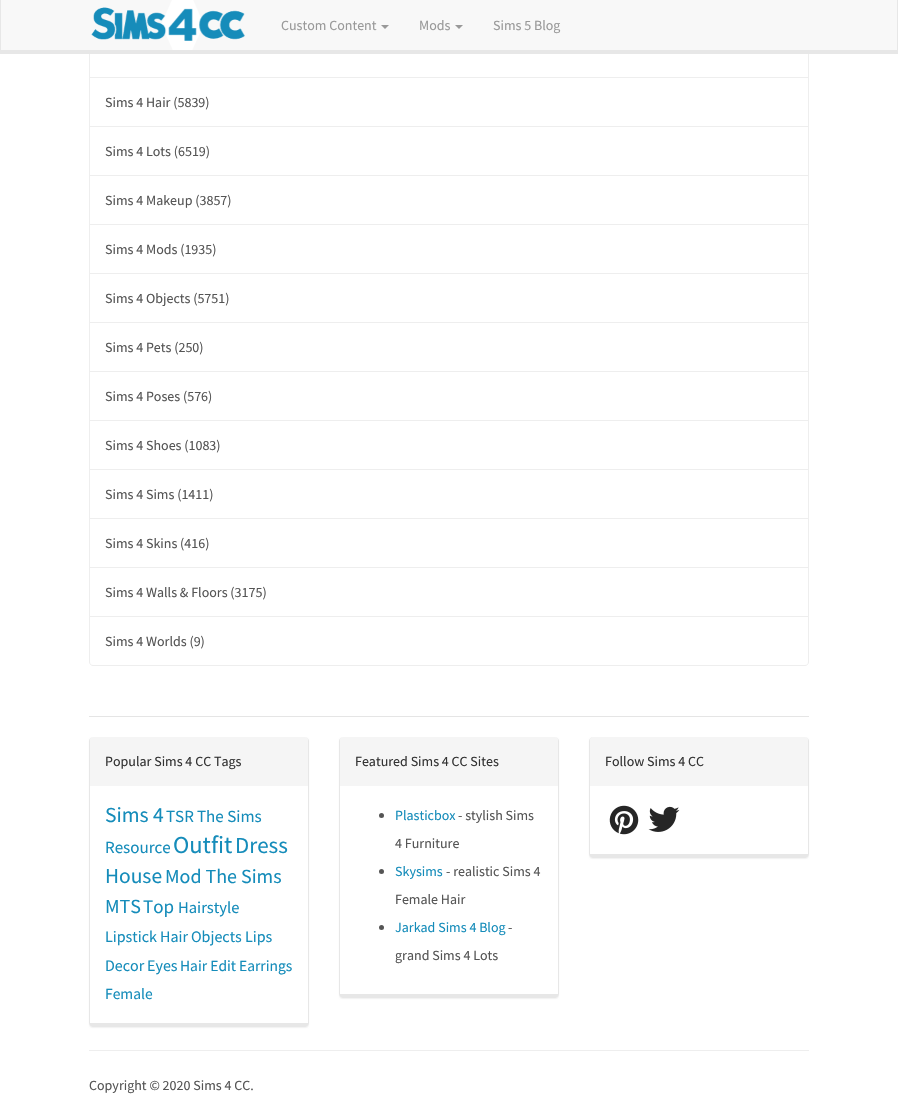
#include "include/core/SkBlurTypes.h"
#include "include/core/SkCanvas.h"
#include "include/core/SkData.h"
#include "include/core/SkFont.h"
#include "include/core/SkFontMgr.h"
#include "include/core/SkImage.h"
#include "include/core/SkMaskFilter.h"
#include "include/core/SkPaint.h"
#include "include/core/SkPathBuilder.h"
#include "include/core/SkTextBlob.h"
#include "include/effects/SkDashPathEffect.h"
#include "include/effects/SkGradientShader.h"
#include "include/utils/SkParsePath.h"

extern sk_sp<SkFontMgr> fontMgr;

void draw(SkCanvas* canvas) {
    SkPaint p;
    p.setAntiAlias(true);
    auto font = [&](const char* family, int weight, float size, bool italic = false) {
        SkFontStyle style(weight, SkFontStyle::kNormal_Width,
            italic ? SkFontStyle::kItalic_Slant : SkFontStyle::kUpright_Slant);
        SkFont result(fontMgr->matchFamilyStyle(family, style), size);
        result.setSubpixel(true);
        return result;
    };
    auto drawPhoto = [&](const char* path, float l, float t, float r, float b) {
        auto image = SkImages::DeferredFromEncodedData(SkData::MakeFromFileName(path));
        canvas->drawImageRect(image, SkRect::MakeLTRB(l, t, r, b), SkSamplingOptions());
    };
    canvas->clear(0xFFFFFFFF);
    p.setStyle(SkPaint::kStroke_Style);
    p.setStrokeWidth(1);
    p.setColor(0xFFEEEEEE);
    canvas->drawRect(SkRect::MakeLTRB(89.5f, 28.5f, 808.5f, 77.5f), p);
    p.setStyle(SkPaint::kFill_Style);
    {
        const struct { float l, t, r, b; SkColor color; } items[] = {
            {1, 0, 897, 50, 0xFFF8F8F8},
            {897, 0, 898, 54, 0xFFE7E7E7},
            {0, 50, 898, 54, 0xFFE7E7E7},
            {0, 0, 1, 54, 0xFFE7E7E7},
        };
        for (auto [l, t, r, b, color] : items) {
            p.setColor(color);
            canvas->drawRect(SkRect::MakeLTRB(l, t, r, b), p);
        }
    }
    drawPhoto("media/1.png", 91, 0, 245, 50);
    auto font1 = font("Source Sans Pro", 400, 14);
    p.setColor(0xFF999999);
    canvas->drawString("Custom Content", 281, 30, font1, p);
    canvas->drawPath(SkPathBuilder().moveTo(381, 25).lineTo(389, 25).lineTo(385, 29).close().detach(), p);
    canvas->drawString("Mods", 419, 30, font1, p);
    canvas->drawPath(SkPathBuilder().moveTo(455, 25).lineTo(463, 25).lineTo(459, 29).close().detach(), p);
    canvas->drawString("Sims 5 Blog", 493, 30, font1, p);
    p.setStyle(SkPaint::kStroke_Style);
    p.setColor(0xFFEEEEEE);
    canvas->drawRect(SkRect::MakeLTRB(89.5f, 77.5f, 808.5f, 126.5f), p);
    p.setStyle(SkPaint::kFill_Style);
    p.setColor(0xFF555555);
    canvas->drawString("Sims 4 Hair (5839)", 105, 107, font1, p);
    p.setStyle(SkPaint::kStroke_Style);
    p.setColor(0xFFEEEEEE);
    canvas->drawRect(SkRect::MakeLTRB(89.5f, 126.5f, 808.5f, 175.5f), p);
    p.setStyle(SkPaint::kFill_Style);
    p.setColor(0xFF555555);
    canvas->drawString("Sims 4 Lots (6519)", 105, 156, font1, p);
    p.setStyle(SkPaint::kStroke_Style);
    p.setColor(0xFFEEEEEE);
    canvas->drawRect(SkRect::MakeLTRB(89.5f, 175.5f, 808.5f, 224.5f), p);
    p.setStyle(SkPaint::kFill_Style);
    p.setColor(0xFF555555);
    canvas->drawString("Sims 4 Makeup (3857)", 105, 205, font1, p);
    p.setStyle(SkPaint::kStroke_Style);
    p.setColor(0xFFEEEEEE);
    canvas->drawRect(SkRect::MakeLTRB(89.5f, 224.5f, 808.5f, 273.5f), p);
    p.setStyle(SkPaint::kFill_Style);
    p.setColor(0xFF555555);
    canvas->drawString("Sims 4 Mods (1935)", 105, 254, font1, p);
    p.setStyle(SkPaint::kStroke_Style);
    p.setColor(0xFFEEEEEE);
    canvas->drawRect(SkRect::MakeLTRB(89.5f, 273.5f, 808.5f, 322.5f), p);
    p.setStyle(SkPaint::kFill_Style);
    p.setColor(0xFF555555);
    canvas->drawString("Sims 4 Objects (5751)", 105, 303, font1, p);
    p.setStyle(SkPaint::kStroke_Style);
    p.setColor(0xFFEEEEEE);
    canvas->drawRect(SkRect::MakeLTRB(89.5f, 322.5f, 808.5f, 371.5f), p);
    p.setStyle(SkPaint::kFill_Style);
    p.setColor(0xFF555555);
    canvas->drawString("Sims 4 Pets (250)", 105, 352, font1, p);
    p.setStyle(SkPaint::kStroke_Style);
    p.setColor(0xFFEEEEEE);
    canvas->drawRect(SkRect::MakeLTRB(89.5f, 371.5f, 808.5f, 420.5f), p);
    p.setStyle(SkPaint::kFill_Style);
    p.setColor(0xFF555555);
    canvas->drawString("Sims 4 Poses (576)", 105, 401, font1, p);
    p.setStyle(SkPaint::kStroke_Style);
    p.setColor(0xFFEEEEEE);
    canvas->drawRect(SkRect::MakeLTRB(89.5f, 420.5f, 808.5f, 469.5f), p);
    p.setStyle(SkPaint::kFill_Style);
    p.setColor(0xFF555555);
    canvas->drawString("Sims 4 Shoes (1083)", 105, 450, font1, p);
    p.setStyle(SkPaint::kStroke_Style);
    p.setColor(0xFFEEEEEE);
    canvas->drawRect(SkRect::MakeLTRB(89.5f, 469.5f, 808.5f, 518.5f), p);
    p.setStyle(SkPaint::kFill_Style);
    p.setColor(0xFF555555);
    canvas->drawString("Sims 4 Sims (1411)", 105, 499, font1, p);
    p.setStyle(SkPaint::kStroke_Style);
    p.setColor(0xFFEEEEEE);
    canvas->drawRect(SkRect::MakeLTRB(89.5f, 518.5f, 808.5f, 567.5f), p);
    p.setStyle(SkPaint::kFill_Style);
    p.setColor(0xFF555555);
    canvas->drawString("Sims 4 Skins (416)", 105, 548, font1, p);
    p.setStyle(SkPaint::kStroke_Style);
    p.setColor(0xFFEEEEEE);
    canvas->drawRect(SkRect::MakeLTRB(89.5f, 567.5f, 808.5f, 616.5f), p);
    p.setStyle(SkPaint::kFill_Style);
    p.setColor(0xFF555555);
    canvas->drawString("Sims 4 Walls & Floors (3175)", 105, 597, font1, p);
    p.setColor(0xFFFFFFFF);
    canvas->drawPath(SkPathBuilder().moveTo(89.5f, 616.5f).lineTo(808.5f, 616.5f).lineTo(808.5f, 662).cubicTo(808.5f, 664, 807, 665.5f, 805, 665.5f).lineTo(93, 665.5f).cubicTo(91, 665.5f, 89.5f, 664, 89.5f, 662).close().detach(), p);
    p.setStyle(SkPaint::kStroke_Style);
    p.setColor(0xFFEEEEEE);
    canvas->drawPath(SkPathBuilder().moveTo(89.5f, 616.5f).lineTo(808.5f, 616.5f).lineTo(808.5f, 662).cubicTo(808.5f, 664, 807, 665.5f, 805, 665.5f).lineTo(93, 665.5f).cubicTo(91, 665.5f, 89.5f, 664, 89.5f, 662).close().detach(), p);
    p.setStyle(SkPaint::kFill_Style);
    p.setColor(0xFF555555);
    canvas->drawString("Sims 4 Worlds (9)", 105, 646, font1, p);
    p.setColor(0xFFE5E5E5);
    canvas->drawRect(SkRect::MakeLTRB(89, 716, 809, 717), p);
    canvas->save();
    canvas->clipPath(SkPathBuilder(SkPathFillType::kEvenOdd).moveTo(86, 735).lineTo(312, 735).lineTo(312, 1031).lineTo(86, 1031).close().moveTo(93, 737).lineTo(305, 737).cubicTo(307, 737, 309, 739, 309, 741).lineTo(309, 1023).cubicTo(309, 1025, 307, 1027, 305, 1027).lineTo(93, 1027).cubicTo(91, 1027, 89, 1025, 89, 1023).lineTo(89, 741).cubicTo(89, 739, 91, 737, 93, 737).close().detach(), true);
    p.setColor(0x0D000000);
    p.setMaskFilter(SkMaskFilter::MakeBlur(kNormal_SkBlurStyle, 0.5f));
    canvas->drawRoundRect(SkRect::MakeLTRB(89, 738, 309, 1028), 4, 4, p);
    p.setMaskFilter(nullptr);
    canvas->restore();
    p.setColor(0xFFE7E7E7);
    canvas->drawPath(SkPathBuilder(SkPathFillType::kEvenOdd).moveTo(93, 737).lineTo(305, 737).cubicTo(307, 737, 309, 739, 309, 741).lineTo(309, 1023).cubicTo(309, 1025, 307, 1027, 305, 1027).lineTo(93, 1027).cubicTo(91, 1027, 89, 1025, 89, 1023).lineTo(89, 741).cubicTo(89, 739, 91, 737, 93, 737).close().moveTo(93, 737).lineTo(305, 737).cubicTo(307, 737, 308, 739, 308, 741).lineTo(308, 1023).lineTo(90, 1023).lineTo(90, 741).cubicTo(90, 739, 91, 737, 93, 737).close().detach(), p);
    p.setColor(0xFFF5F5F5);
    canvas->drawPath(SkPathBuilder().moveTo(93, 737).lineTo(305, 737).cubicTo(306.5f, 737, 308, 738.5f, 308, 740).lineTo(308, 786).lineTo(90, 786).lineTo(90, 740).cubicTo(90, 738.5f, 91.5f, 737, 93, 737).close().detach(), p);
    p.setColor(0xFF333333);
    canvas->drawString("Popular Sims 4 CC Tags", 105, 766, font1, p);
    auto font2 = font("Source Sans Pro", 400, 21.5f);
    p.setColor(0xFF158CBA);
    canvas->drawString("Sims 4", 105, 822, font2, p);
    auto font3 = font("Source Sans Pro", 400, 17);
    {
        const struct { const char* s; float x, y; } items[] = {
            {"TSR", 166, 822},
            {"The Sims", 197, 822},
            {"Resource", 105, 853},
        };
        for (auto [s, x, y] : items) {
            canvas->drawString(s, x, y, font3, p);
        }
    }
    auto font4 = font("Source Sans Pro", 400, 24.5f);
    canvas->drawString("Outfit", 173, 853, font4, p);
    auto font5 = font("Source Sans Pro", 400, 23);
    canvas->drawString("Dress", 235, 853, font5, p);
    canvas->drawString("House", 105, 883, font2, p);
    auto font6 = font("Source Sans Pro", 400, 20);
    canvas->drawString("Mod The Sims", 165, 883, font6, p);
    canvas->drawString("MTS", 105, 913, font6, p);
    auto font7 = font("Source Sans Pro", 400, 19);
    canvas->drawString("Top", 143, 913, font7, p);
    auto font8 = font("Source Sans Pro", 400, 16.5f);
    canvas->drawString("Hairstyle", 178, 913, font8, p);
    auto font9 = font("Source Sans Pro", 400, 16);
    {
        const struct { const char* s; float x, y; } items[] = {
            {"Lipstick", 105, 942},
            {"Hair", 160, 942},
            {"Objects", 191, 942},
            {"Lips", 245, 942},
            {"Decor", 105, 971},
            {"Eyes", 147, 971},
        };
        for (auto [s, x, y] : items) {
            canvas->drawString(s, x, y, font9, p);
        }
    }
    auto font10 = font("Source Sans Pro", 400, 15.5f);
    {
        const struct { const char* s; float x, y; } items[] = {
            {"Hair Edit", 180, 971},
            {"Earrings", 239, 971},
            {"Female", 105, 999},
        };
        for (auto [s, x, y] : items) {
            canvas->drawString(s, x, y, font10, p);
        }
    }
    canvas->save();
    canvas->clipPath(SkPathBuilder(SkPathFillType::kEvenOdd).moveTo(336, 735).lineTo(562, 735).lineTo(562, 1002).lineTo(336, 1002).close().moveTo(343, 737).lineTo(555, 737).cubicTo(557, 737, 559, 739, 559, 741).lineTo(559, 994).cubicTo(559, 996, 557, 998, 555, 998).lineTo(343, 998).cubicTo(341, 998, 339, 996, 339, 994).lineTo(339, 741).cubicTo(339, 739, 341, 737, 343, 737).close().detach(), true);
    p.setColor(0x0D000000);
    p.setMaskFilter(SkMaskFilter::MakeBlur(kNormal_SkBlurStyle, 0.5f));
    canvas->drawRoundRect(SkRect::MakeLTRB(339, 738, 559, 999), 4, 4, p);
    p.setMaskFilter(nullptr);
    canvas->restore();
    p.setColor(0xFFE7E7E7);
    canvas->drawPath(SkPathBuilder(SkPathFillType::kEvenOdd).moveTo(343, 737).lineTo(555, 737).cubicTo(557, 737, 559, 739, 559, 741).lineTo(559, 994).cubicTo(559, 996, 557, 998, 555, 998).lineTo(343, 998).cubicTo(341, 998, 339, 996, 339, 994).lineTo(339, 741).cubicTo(339, 739, 341, 737, 343, 737).close().moveTo(343, 737).lineTo(555, 737).cubicTo(557, 737, 558, 739, 558, 741).lineTo(558, 994).lineTo(340, 994).lineTo(340, 741).cubicTo(340, 739, 341, 737, 343, 737).close().detach(), p);
    p.setColor(0xFFF5F5F5);
    canvas->drawPath(SkPathBuilder().moveTo(343, 737).lineTo(555, 737).cubicTo(556.5f, 737, 558, 738.5f, 558, 740).lineTo(558, 786).lineTo(340, 786).lineTo(340, 740).cubicTo(340, 738.5f, 341.5f, 737, 343, 737).close().detach(), p);
    p.setColor(0xFF333333);
    canvas->drawString("Featured Sims 4 CC Sites", 355, 766, font1, p);
    p.setColor(0xFF555555);
    canvas->drawCircle(381.5f, 815.5f, 2.5f, p);
    p.setColor(0xFF158CBA);
    canvas->drawString("Plasticbox", 395, 820, font1, p);
    p.setColor(0xFF555555);
    canvas->drawString("- stylish Sims", 458, 820, font1, p);
    canvas->drawString("4 Furniture", 395, 848, font1, p);
    canvas->drawCircle(381.5f, 871.5f, 2.5f, p);
    p.setColor(0xFF158CBA);
    canvas->drawString("Skysims", 395, 876, font1, p);
    p.setColor(0xFF555555);
    canvas->drawString("- realistic Sims 4", 446, 876, font1, p);
    canvas->drawString("Female Hair", 395, 904, font1, p);
    canvas->drawCircle(381.5f, 927.5f, 2.5f, p);
    p.setColor(0xFF158CBA);
    canvas->drawString("Jarkad Sims 4 Blog", 395, 932, font1, p);
    p.setColor(0xFF555555);
    canvas->drawString("-", 508, 932, font1, p);
    canvas->drawString("grand Sims 4 Lots", 395, 960, font1, p);
    canvas->save();
    canvas->clipPath(SkPathBuilder(SkPathFillType::kEvenOdd).moveTo(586, 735).lineTo(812, 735).lineTo(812, 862).lineTo(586, 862).close().moveTo(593, 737).lineTo(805, 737).cubicTo(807, 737, 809, 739, 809, 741).lineTo(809, 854).cubicTo(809, 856, 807, 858, 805, 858).lineTo(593, 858).cubicTo(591, 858, 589, 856, 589, 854).lineTo(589, 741).cubicTo(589, 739, 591, 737, 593, 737).close().detach(), true);
    p.setColor(0x0D000000);
    p.setMaskFilter(SkMaskFilter::MakeBlur(kNormal_SkBlurStyle, 0.5f));
    canvas->drawRoundRect(SkRect::MakeLTRB(589, 738, 809, 859), 4, 4, p);
    p.setMaskFilter(nullptr);
    canvas->restore();
    p.setColor(0xFFE7E7E7);
    canvas->drawPath(SkPathBuilder(SkPathFillType::kEvenOdd).moveTo(593, 737).lineTo(805, 737).cubicTo(807, 737, 809, 739, 809, 741).lineTo(809, 854).cubicTo(809, 856, 807, 858, 805, 858).lineTo(593, 858).cubicTo(591, 858, 589, 856, 589, 854).lineTo(589, 741).cubicTo(589, 739, 591, 737, 593, 737).close().moveTo(593, 737).lineTo(805, 737).cubicTo(807, 737, 808, 739, 808, 741).lineTo(808, 854).lineTo(590, 854).lineTo(590, 740).lineTo(591, 738).close().detach(), p);
    p.setColor(0xFFF5F5F5);
    canvas->drawPath(SkPathBuilder().moveTo(593, 737).lineTo(805, 737).cubicTo(806.5f, 737, 808, 738.5f, 808, 740).lineTo(808, 786).lineTo(590, 786).lineTo(590, 740).cubicTo(590, 738.5f, 591.5f, 737, 593, 737).close().detach(), p);
    p.setColor(0xFF333333);
    canvas->drawString("Follow Sims 4 CC", 605, 766, font1, p);
    drawPhoto("media/2.png", 609, 805, 639, 835);
    drawPhoto("media/3.png", 648, 806, 680, 832);
    p.setColor(0xFFEEEEEE);
    canvas->drawRect(SkRect::MakeLTRB(89, 1050, 809, 1051), p);
    p.setColor(0xFF555555);
    canvas->drawString("Copyright © 2020 Sims 4 CC.", 89, 1090, font1, p);
}
